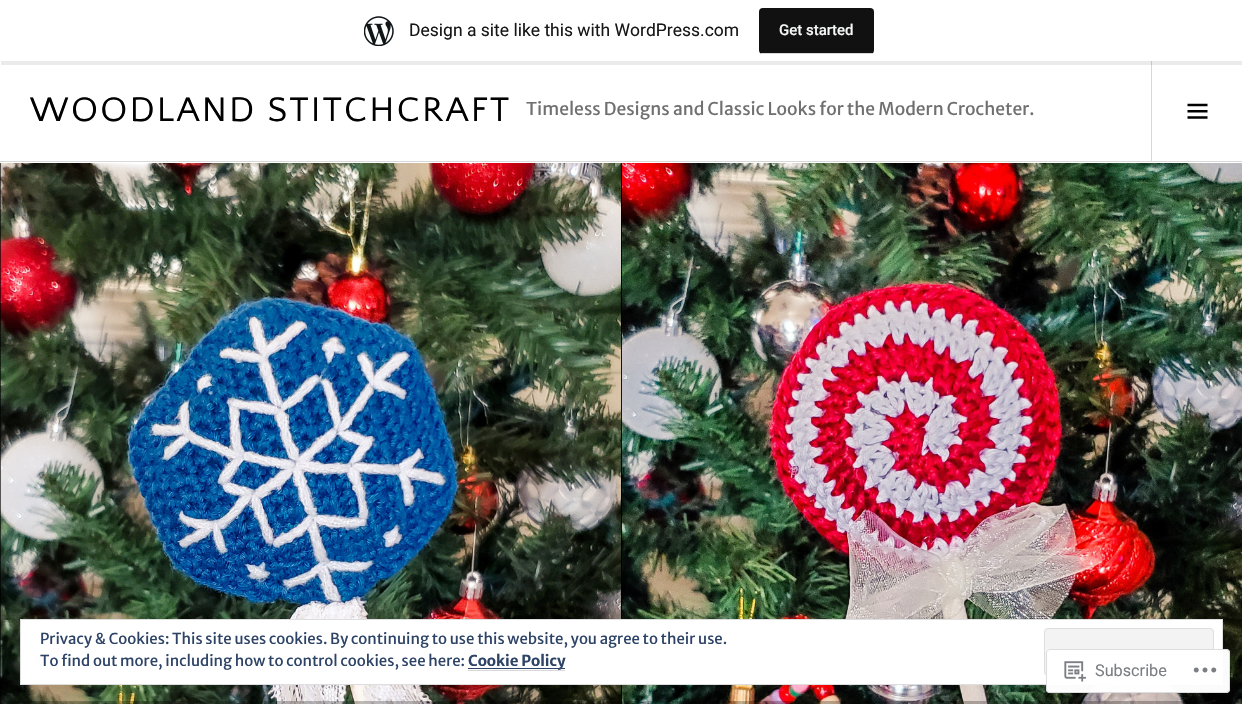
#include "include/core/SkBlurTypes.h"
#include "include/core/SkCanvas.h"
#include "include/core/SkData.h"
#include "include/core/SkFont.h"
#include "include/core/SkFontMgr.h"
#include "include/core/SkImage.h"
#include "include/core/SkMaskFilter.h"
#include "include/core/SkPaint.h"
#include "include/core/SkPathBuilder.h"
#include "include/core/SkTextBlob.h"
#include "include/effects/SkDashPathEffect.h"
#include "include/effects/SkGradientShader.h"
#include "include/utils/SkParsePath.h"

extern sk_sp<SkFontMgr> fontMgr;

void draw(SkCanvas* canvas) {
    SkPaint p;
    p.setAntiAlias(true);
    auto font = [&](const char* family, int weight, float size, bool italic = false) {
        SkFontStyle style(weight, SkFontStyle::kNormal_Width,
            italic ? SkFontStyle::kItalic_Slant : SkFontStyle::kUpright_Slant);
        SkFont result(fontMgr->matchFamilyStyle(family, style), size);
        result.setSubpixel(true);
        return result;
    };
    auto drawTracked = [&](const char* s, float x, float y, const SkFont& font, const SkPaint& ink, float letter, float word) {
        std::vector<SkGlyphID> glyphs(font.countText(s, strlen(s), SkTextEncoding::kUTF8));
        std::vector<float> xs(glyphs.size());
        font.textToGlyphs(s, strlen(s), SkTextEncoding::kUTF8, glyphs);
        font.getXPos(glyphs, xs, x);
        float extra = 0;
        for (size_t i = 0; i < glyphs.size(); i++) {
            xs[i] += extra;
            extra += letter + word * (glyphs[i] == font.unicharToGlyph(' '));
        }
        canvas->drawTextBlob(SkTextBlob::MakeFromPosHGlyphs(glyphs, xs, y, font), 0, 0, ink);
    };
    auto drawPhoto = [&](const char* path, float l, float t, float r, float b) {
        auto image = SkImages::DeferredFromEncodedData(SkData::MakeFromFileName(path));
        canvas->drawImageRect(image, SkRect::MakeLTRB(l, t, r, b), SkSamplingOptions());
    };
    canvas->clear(0xFFFFFFFF);
    p.setColor(0xFFD8D8D8);
    canvas->drawRect(SkRect::MakeLTRB(1151, 61, 1152, 161), p);
    p.setColor(0x14000000);
    canvas->drawPath(SkPathBuilder().moveTo(1, 61).lineTo(1, 65).lineTo(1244, 65).lineTo(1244, 4).lineTo(1242, 4).lineTo(1242, 61).close().detach(), p);
    drawPhoto("media/1.png", 364, 16, 394, 46);
    auto font1 = font("Roboto", 400, 17.5f);
    p.setColor(0xFF171717);
    canvas->drawString("Design a site like this with WordPress.com", 409, 36, font1, p);
    p.setColor(0xFF111111);
    canvas->drawRoundRect(SkRect::MakeLTRB(759, 8, 874, 54), 4, 4, p);
    p.setColor(0xFFD8D8D8);
    canvas->drawRect(SkRect::MakeLTRB(761, 53, 873, 54), p);
    auto font2 = font("Roboto", 500, 15);
    p.setColor(0xFFF6F7F7);
    canvas->drawString("Get started", 779, 35, font2, p);
    p.setColor(0xFFD8D8D8);
    canvas->drawRect(SkRect::MakeLTRB(0, 161, 1242, 162), p);
    auto font3 = font("Quattrocento Sans", 400, 35.75f);
    p.setColor(0xFF000000);
    drawTracked("WOODLAND STITCHCRAFT", 30, 121, font3, p, 2.25f, 0);
    auto font4 = font("Merriweather Sans", 400, 17.5f);
    p.setColor(0xFF707070);
    canvas->drawString("Timeless Designs and Classic Looks for the Modern Crocheter.", 526, 115, font4, p);
    drawPhoto("media/2.png", 1187, 103, 1208, 119);
    p.setColor(0xFF000000);
    canvas->drawRect(SkRect::MakeLTRB(0, 163, 1, 704), p);
    drawPhoto("media/3.png", 0, 163, 621, 704);
    p.setColor(0x40000000);
    canvas->drawRect(SkRect::MakeLTRB(0, 701, 621, 704), p);
    p.setColor(0xFF000000);
    canvas->drawRect(SkRect::MakeLTRB(621, 163, 622, 704), p);
    drawPhoto("media/4.png", 621, 163, 1242, 704);
    p.setColor(0x40000000);
    canvas->drawRect(SkRect::MakeLTRB(621, 701, 1242, 704), p);
    p.setColor(0xFFFFFFFF);
    canvas->drawRect(SkRect::MakeLTRB(20.5f, 619.5f, 1222.5f, 684.5f), p);
    p.setStyle(SkPaint::kStroke_Style);
    p.setStrokeWidth(1);
    p.setColor(0xFFDEDEDE);
    canvas->drawRect(SkRect::MakeLTRB(20.5f, 619.5f, 1222.5f, 684.5f), p);
    auto font5 = font("Merriweather Sans", 400, 15);
    p.setStyle(SkPaint::kFill_Style);
    p.setColor(0xFF2E4467);
    canvas->drawString("Privacy & Cookies: This site uses cookies. By continuing to use this website, you agree to their use.", 40, 644, font5, p);
    p.setColor(0xFFF3F3F3);
    canvas->drawRoundRect(SkRect::MakeLTRB(1044.5f, 628.5f, 1213.5f, 675.5f), 3.5f, 3.5f, p);
    p.setStyle(SkPaint::kStroke_Style);
    p.setColor(0xFFDEDEDE);
    canvas->drawRoundRect(SkRect::MakeLTRB(1044.5f, 628.5f, 1213.5f, 675.5f), 3.5f, 3.5f, p);
    p.setStyle(SkPaint::kFill_Style);
    p.setColor(0xFF2E4467);
    canvas->drawString("To find out more, including how to control cookies, see here:", 40, 666, font5, p);
    canvas->drawRect(SkRect::MakeLTRB(468, 668, 565, 669), p);
    auto font6 = font("Merriweather Sans", 700, 15);
    canvas->drawString("Cookie Policy", 468, 666, font6, p);
    p.setColor(0xFFD8D8D8);
    canvas->drawRect(SkRect::MakeLTRB(468, 670, 565, 671), p);
    p.setColor(0xFAFFFFFF);
    canvas->drawRoundRect(SkRect::MakeLTRB(1046, 649, 1230, 693), 4, 4, p);
    p.setStyle(SkPaint::kStroke_Style);
    p.setColor(0xFADCDCDE);
    canvas->drawRoundRect(SkRect::MakeLTRB(1046.5f, 649.5f, 1229.5f, 692.5f), 3.5f, 3.5f, p);
    drawPhoto("media/5.png", 1064, 661, 1086, 682);
    auto font7 = font("Roboto", 400, 16.25f);
    p.setStyle(SkPaint::kFill_Style);
    p.setColor(0xFF7B7F84);
    canvas->drawString("Subscribe", 1095, 676, font7, p);
    drawPhoto("media/6.png", 1193, 667, 1217, 673);
}
